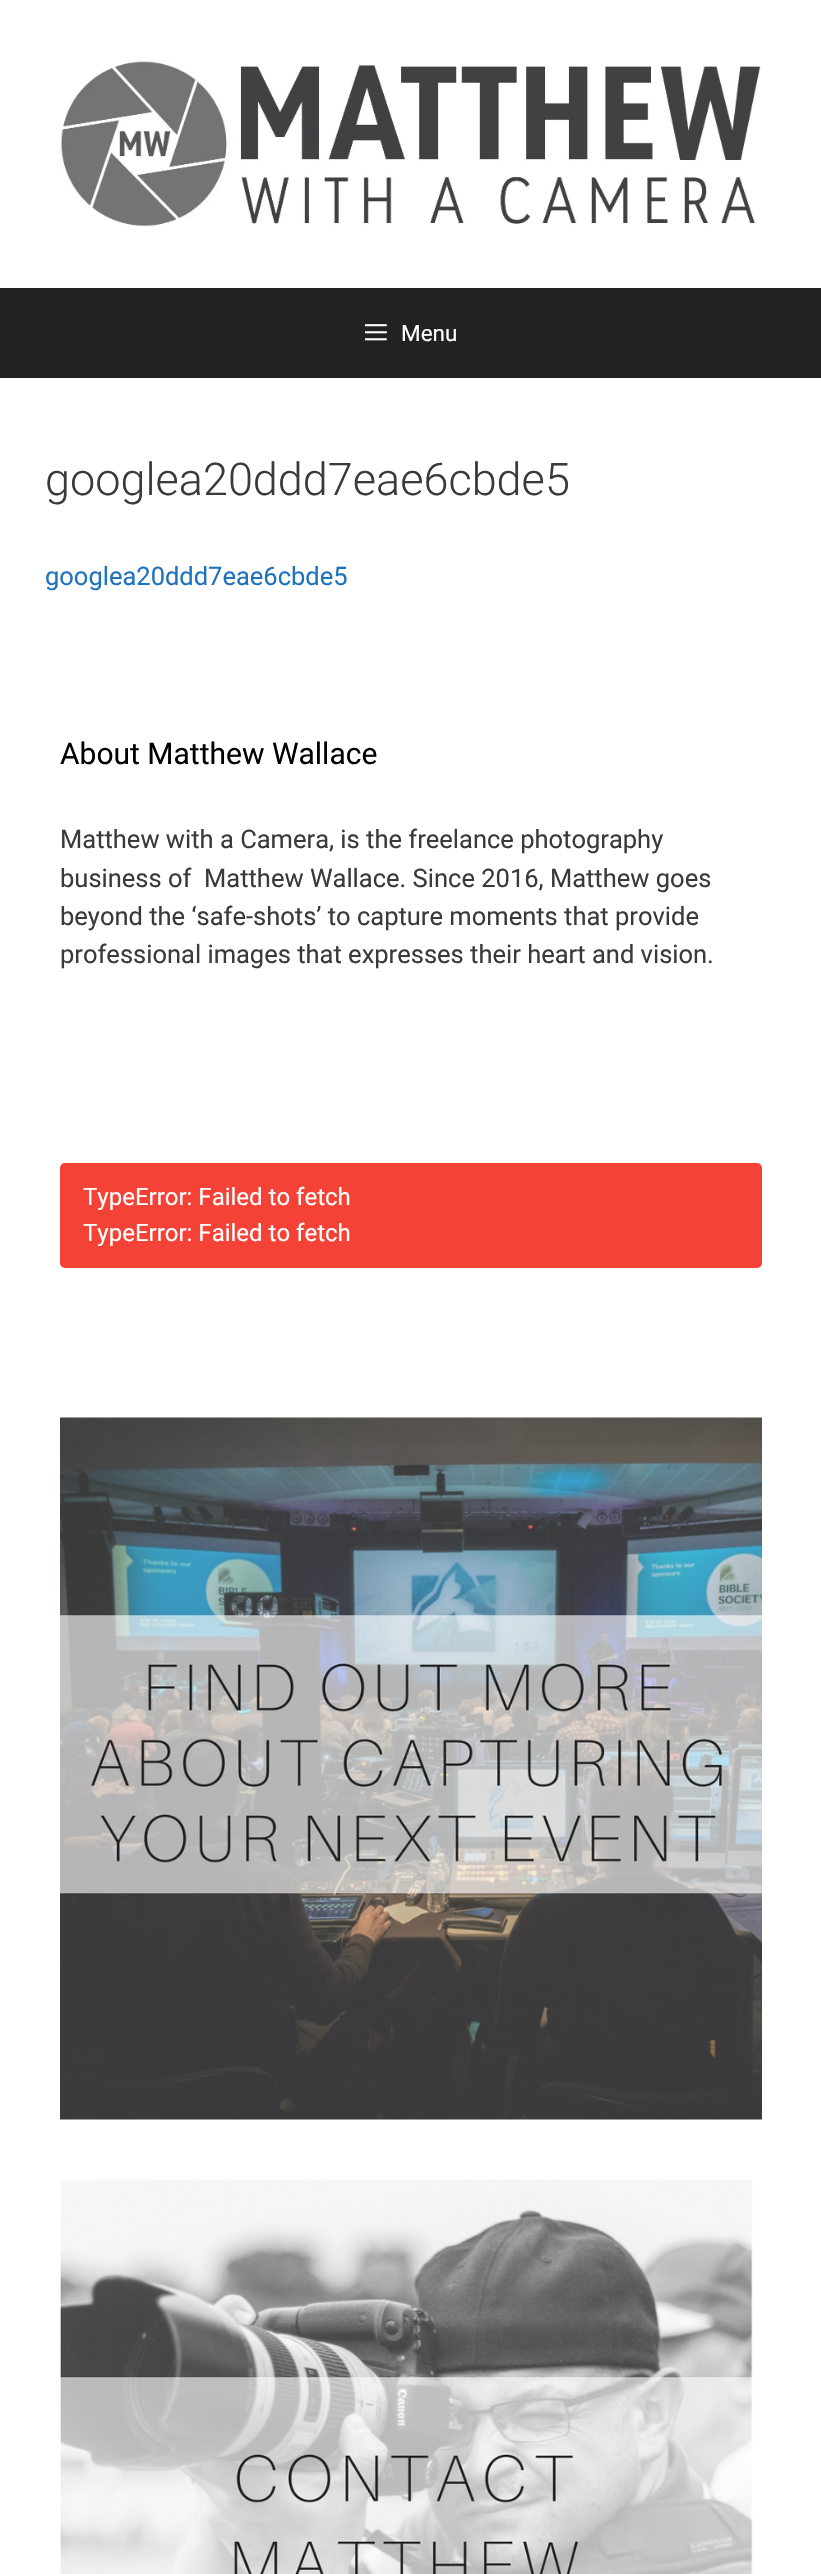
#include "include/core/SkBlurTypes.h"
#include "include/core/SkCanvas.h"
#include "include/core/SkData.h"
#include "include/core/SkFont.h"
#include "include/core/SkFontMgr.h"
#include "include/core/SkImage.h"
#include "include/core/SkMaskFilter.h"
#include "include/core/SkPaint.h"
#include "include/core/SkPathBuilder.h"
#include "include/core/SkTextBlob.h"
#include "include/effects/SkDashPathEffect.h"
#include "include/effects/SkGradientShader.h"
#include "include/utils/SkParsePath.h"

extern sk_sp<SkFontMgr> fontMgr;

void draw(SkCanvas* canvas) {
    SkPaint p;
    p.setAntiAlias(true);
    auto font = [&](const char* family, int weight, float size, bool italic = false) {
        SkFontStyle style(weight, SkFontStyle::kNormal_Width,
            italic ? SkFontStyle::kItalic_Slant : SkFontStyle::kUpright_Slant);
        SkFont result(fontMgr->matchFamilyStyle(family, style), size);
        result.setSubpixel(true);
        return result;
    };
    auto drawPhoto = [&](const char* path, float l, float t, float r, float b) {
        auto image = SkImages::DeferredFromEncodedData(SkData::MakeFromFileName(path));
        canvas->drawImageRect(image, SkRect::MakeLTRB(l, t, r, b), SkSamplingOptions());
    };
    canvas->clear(0xFFFFFFFF);
    drawPhoto("media/1.png", 60, 60, 761, 227);
    p.setColor(0xFF222222);
    canvas->drawRect(SkRect::MakeLTRB(0, 288, 821, 378), p);
    drawPhoto("media/2.png", 365, 324, 387, 341);
    auto font1 = font("Roboto", 400, 22.5f);
    p.setColor(0xFFFFFFFF);
    canvas->drawString("Menu", 401, 341, font1, p);
    auto font2 = font("Roboto", 300, 45);
    p.setColor(0xFF3A3A3A);
    canvas->drawString("googlea20ddd7eae6cbde5", 45, 495, font2, p);
    auto font3 = font("Roboto", 400, 25.5f);
    p.setColor(0xFF1E73BE);
    canvas->drawString("googlea20ddd7eae6cbde5", 45, 585, font3, p);
    auto font4 = font("Roboto", 400, 30);
    p.setColor(0xFF000000);
    canvas->drawString("About Matthew Wallace", 60, 764, font4, p);
    p.setColor(0xFF3A3A3A);
    {
        const struct { const char* s; float x, y; } items[] = {
            {"Matthew with a Camera, is the freelance photography", 60, 848},
            {"business of  Matthew Wallace. Since 2016, Matthew goes", 60, 887},
            {"beyond the ‘safe-shots’ to capture moments that provide", 60, 925},
            {"professional images that expresses their heart and vision.", 60, 963},
        };
        for (auto [s, x, y] : items) {
            canvas->drawString(s, x, y, font3, p);
        }
    }
    p.setColor(0xFFF44336);
    canvas->drawRoundRect(SkRect::MakeLTRB(60, 1163, 762, 1268), 5, 5, p);
    auto font5 = font("Roboto", 400, 24);
    p.setColor(0xFFFFFFFF);
    canvas->drawString("TypeError: Failed to fetch", 83, 1205, font5, p);
    canvas->drawString("TypeError: Failed to fetch", 83, 1241, font5, p);
    drawPhoto("media/3.png", 60, 1417, 762, 2120);
    drawPhoto("media/4.png", 60, 2179, 753, 2574);
}
